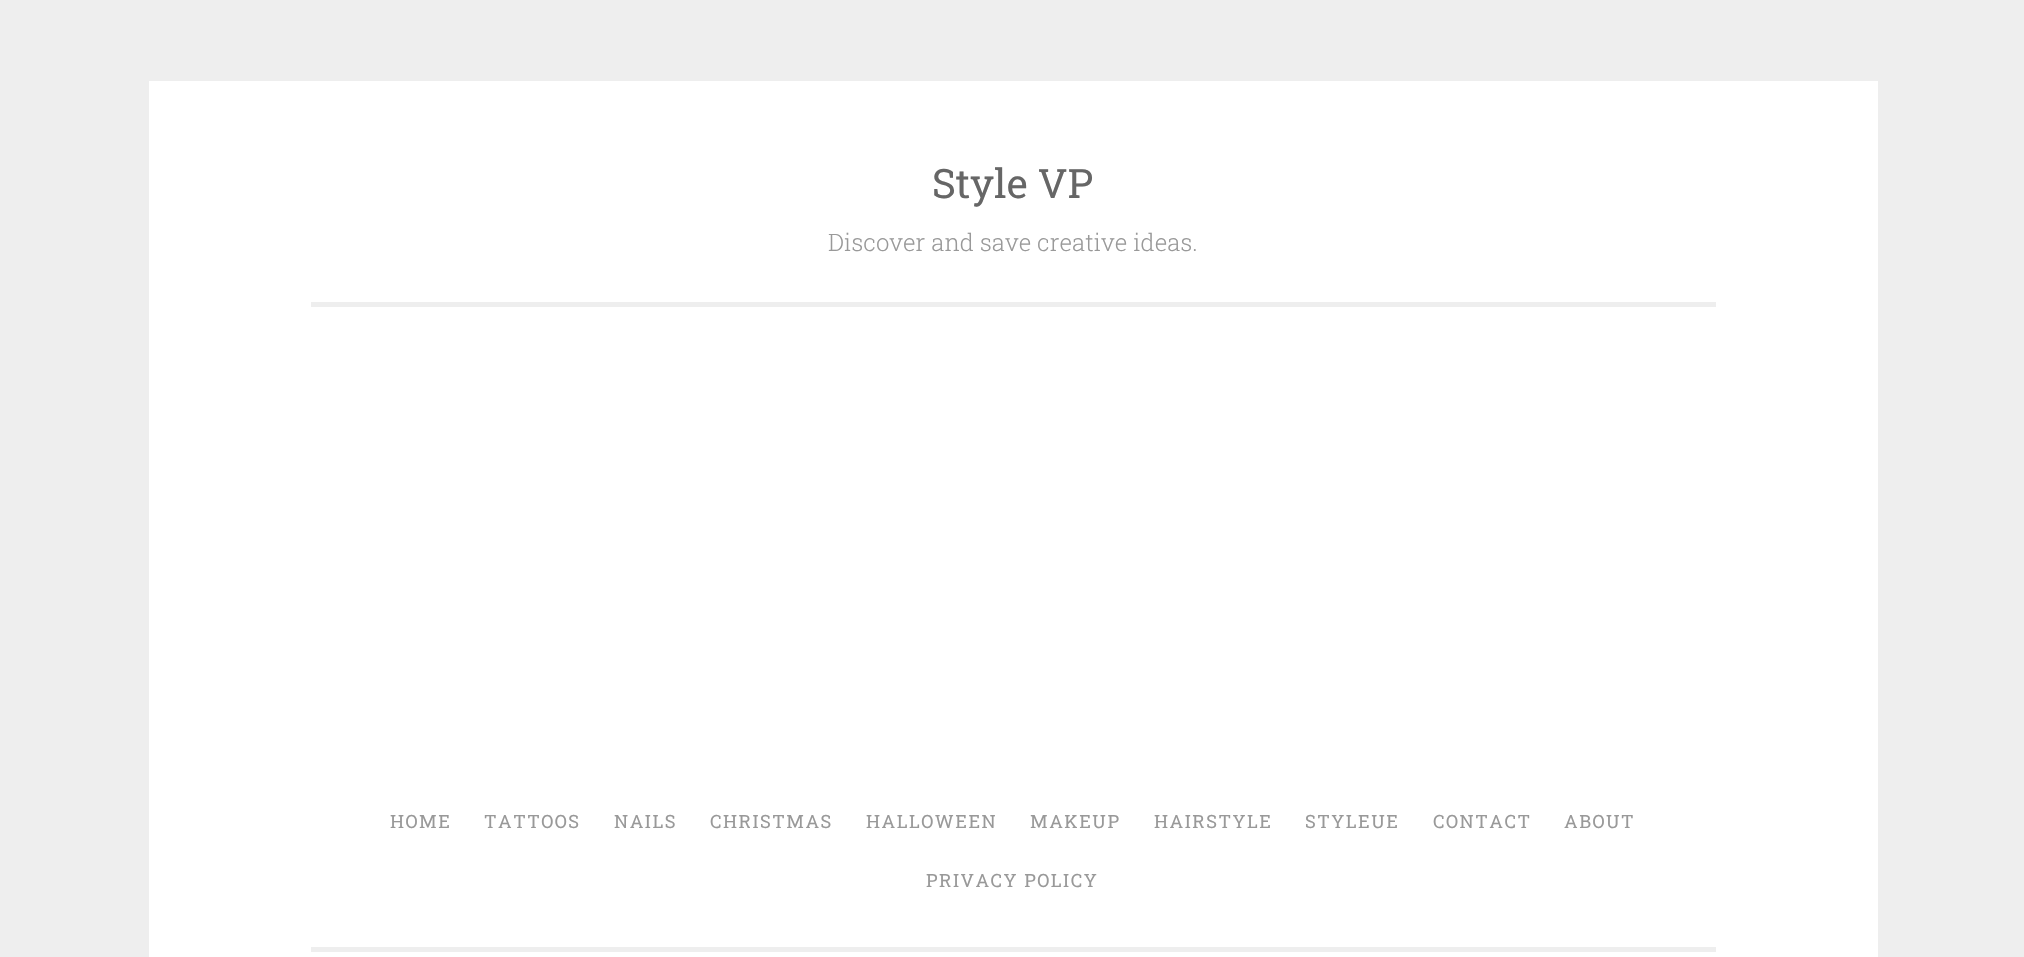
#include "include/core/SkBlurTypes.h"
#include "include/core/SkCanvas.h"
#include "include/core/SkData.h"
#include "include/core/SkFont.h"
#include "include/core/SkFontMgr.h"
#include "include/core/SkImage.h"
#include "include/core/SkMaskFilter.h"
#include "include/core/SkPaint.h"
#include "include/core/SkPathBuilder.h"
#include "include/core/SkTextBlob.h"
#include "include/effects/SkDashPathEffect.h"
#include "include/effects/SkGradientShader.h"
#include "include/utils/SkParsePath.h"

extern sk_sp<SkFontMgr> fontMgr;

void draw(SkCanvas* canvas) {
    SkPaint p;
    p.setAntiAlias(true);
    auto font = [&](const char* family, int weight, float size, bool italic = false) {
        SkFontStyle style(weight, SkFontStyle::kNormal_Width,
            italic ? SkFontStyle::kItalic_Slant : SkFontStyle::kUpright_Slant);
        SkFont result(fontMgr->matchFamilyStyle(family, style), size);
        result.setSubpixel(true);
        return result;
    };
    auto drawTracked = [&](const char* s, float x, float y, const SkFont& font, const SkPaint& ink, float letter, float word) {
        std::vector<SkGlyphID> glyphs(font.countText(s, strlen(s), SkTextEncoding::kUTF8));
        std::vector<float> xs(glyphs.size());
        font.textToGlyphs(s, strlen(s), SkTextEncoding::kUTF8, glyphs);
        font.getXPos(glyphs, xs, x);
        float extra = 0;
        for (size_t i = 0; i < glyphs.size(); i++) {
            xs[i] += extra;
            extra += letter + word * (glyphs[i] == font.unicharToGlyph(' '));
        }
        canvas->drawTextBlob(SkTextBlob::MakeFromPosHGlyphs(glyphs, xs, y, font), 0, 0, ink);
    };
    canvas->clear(0xFFEEEEEE);
    p.setColor(0xFFFFFFFF);
    canvas->drawRect(SkRect::MakeLTRB(149, 81, 1878, 957), p);
    p.setColor(0xFFEEEEEE);
    canvas->drawRect(SkRect::MakeLTRB(311, 947, 1716, 952), p);
    auto font1 = font("Roboto Slab", 400, 40.5f);
    p.setColor(0xFF666666);
    canvas->drawString("Style VP", 932, 198, font1, p);
    auto font2 = font("Roboto Slab", 300, 24);
    p.setColor(0xFF999999);
    canvas->drawString("Discover and save creative ideas.", 828, 251, font2, p);
    p.setColor(0xFFEEEEEE);
    canvas->drawRect(SkRect::MakeLTRB(311, 302, 1716, 307), p);
    auto font3 = font("Roboto Slab", 400, 18.25f);
    p.setColor(0xFF999999);
    {
        const struct { const char* s; float x, y; } items[] = {
            {"HOME", 390, 828},
            {"TATTOOS", 484, 828},
            {"NAILS", 614, 828},
            {"CHRISTMAS", 710, 828},
            {"HALLOWEEN", 866, 828},
            {"MAKEUP", 1030, 828},
            {"HAIRSTYLE", 1154, 828},
            {"STYLEUE", 1305, 828},
            {"CONTACT", 1433, 828},
            {"ABOUT", 1564, 828},
            {"PRIVACY POLICY", 926, 887},
        };
        for (auto [s, x, y] : items) {
            drawTracked(s, x, y, font3, p, 1.5f, 0);
        }
    }
}
